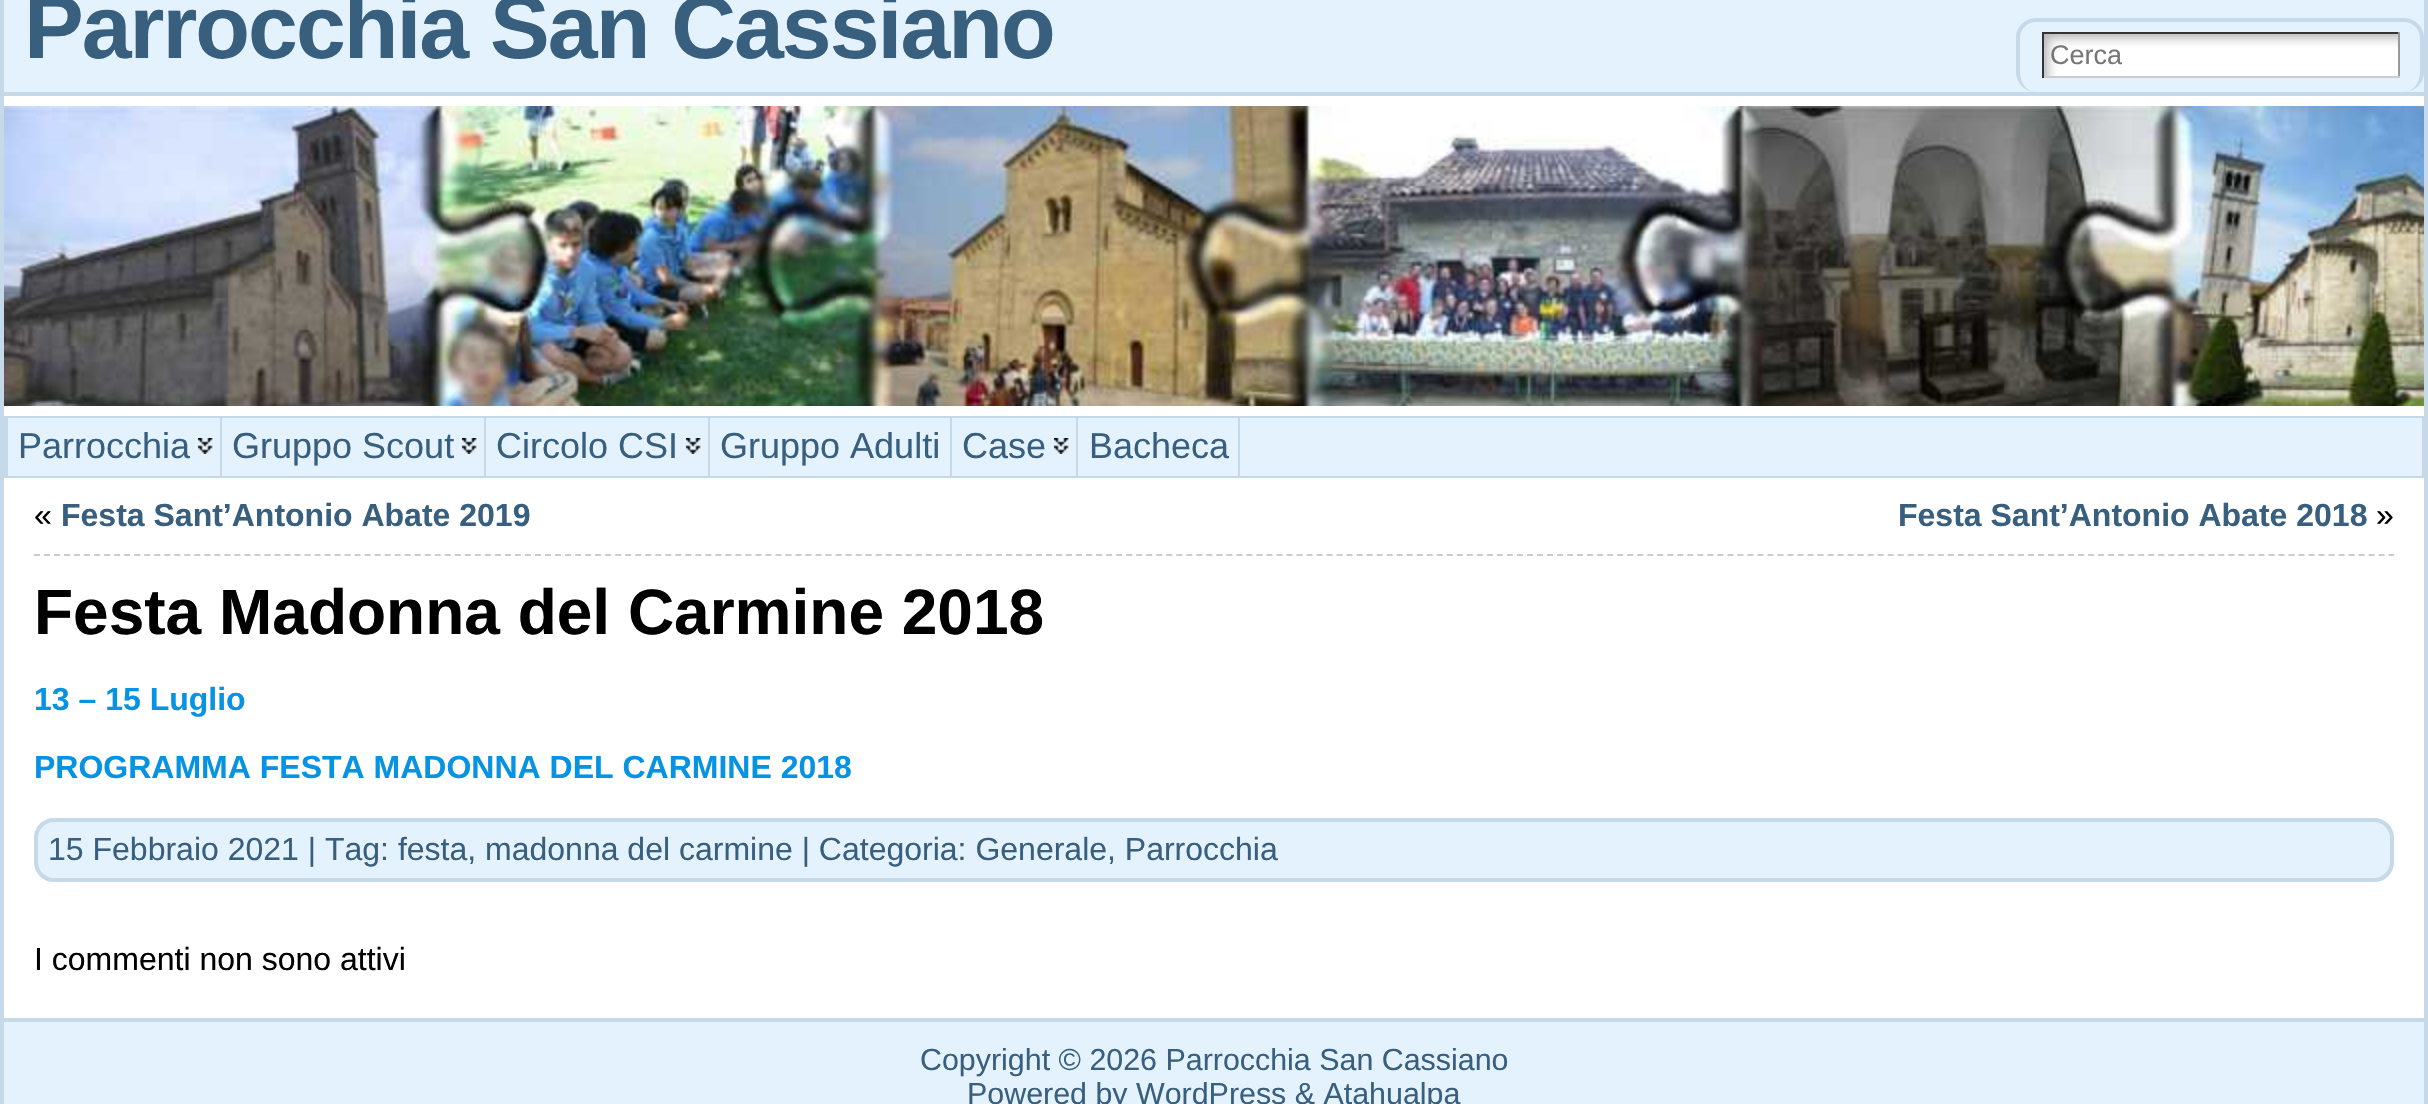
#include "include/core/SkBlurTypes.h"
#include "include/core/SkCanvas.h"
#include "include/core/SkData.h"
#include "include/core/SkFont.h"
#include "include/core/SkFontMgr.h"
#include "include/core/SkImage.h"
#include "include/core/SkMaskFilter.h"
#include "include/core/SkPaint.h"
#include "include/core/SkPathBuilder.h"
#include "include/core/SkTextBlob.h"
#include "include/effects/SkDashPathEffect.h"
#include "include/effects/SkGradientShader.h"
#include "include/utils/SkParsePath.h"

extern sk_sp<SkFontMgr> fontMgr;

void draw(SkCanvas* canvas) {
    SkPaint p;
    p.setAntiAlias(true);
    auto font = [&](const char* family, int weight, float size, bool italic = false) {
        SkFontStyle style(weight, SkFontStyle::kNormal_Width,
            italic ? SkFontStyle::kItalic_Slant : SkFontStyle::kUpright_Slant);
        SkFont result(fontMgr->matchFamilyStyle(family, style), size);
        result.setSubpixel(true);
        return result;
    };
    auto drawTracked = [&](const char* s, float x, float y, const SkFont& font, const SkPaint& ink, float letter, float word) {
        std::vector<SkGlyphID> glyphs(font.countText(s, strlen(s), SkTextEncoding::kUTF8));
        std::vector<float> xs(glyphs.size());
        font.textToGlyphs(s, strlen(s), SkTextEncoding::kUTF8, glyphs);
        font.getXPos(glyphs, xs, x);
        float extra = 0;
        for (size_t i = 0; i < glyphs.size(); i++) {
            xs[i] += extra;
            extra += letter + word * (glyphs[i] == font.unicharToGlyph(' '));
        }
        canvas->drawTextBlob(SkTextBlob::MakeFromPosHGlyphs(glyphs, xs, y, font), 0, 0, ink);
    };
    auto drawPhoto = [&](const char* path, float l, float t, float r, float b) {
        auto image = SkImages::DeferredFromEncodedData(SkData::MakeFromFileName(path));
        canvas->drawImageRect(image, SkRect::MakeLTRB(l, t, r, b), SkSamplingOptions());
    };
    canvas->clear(0xFFFFFFFF);
    p.setStyle(SkPaint::kStroke_Style);
    p.setStrokeWidth(4);
    p.setColor(0xFFC6D9E9);
    canvas->drawRect(SkRect::MakeLTRB(2, -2, 2426, 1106), p);
    p.setStyle(SkPaint::kFill_Style);
    p.setColor(0xFFE4F2FD);
    canvas->drawRect(SkRect::MakeLTRB(4, 0, 2424, 92), p);
    auto font1 = font("Liberation Sans", 700, 89.6f);
    p.setColor(0xFF385F7E);
    drawTracked("Parrocchia San Cassiano", 24, 58, font1, p, -2, 0);
    p.setColor(0xFFC6D9E9);
    canvas->drawPath(SkPathBuilder(SkPathFillType::kEvenOdd).moveTo(2036, 18).lineTo(2404, 18).cubicTo(2415, 18, 2424, 27, 2424, 38).lineTo(2424, 72).cubicTo(2424, 83, 2415, 92, 2404, 92).lineTo(2036, 92).cubicTo(2025, 92, 2016, 83, 2016, 72).lineTo(2016, 38).cubicTo(2016, 27, 2025, 18, 2036, 18).close().moveTo(2036, 22).lineTo(2404, 22).cubicTo(2413, 22, 2420, 29, 2420, 38).lineTo(2420, 72).cubicTo(2420, 83, 2413, 92, 2404, 92).lineTo(2036, 92).cubicTo(2027, 92, 2020, 83, 2020, 72).lineTo(2020, 38).cubicTo(2020, 29, 2027, 22, 2036, 22).close().detach(), p);
    drawPhoto("media/1.png", 2044, 34, 2398, 76);
    {
        const struct { float l, t, r, b; SkColor color; } items[] = {
            {2042, 32, 2400, 34, 0xFF333333},
            {2398, 32, 2400, 78, 0xFF999999},
            {2042, 76, 2400, 78, 0xFFCCCCCC},
            {2042, 32, 2044, 78, 0xFF333333},
        };
        for (auto [l, t, r, b, color] : items) {
            p.setColor(color);
            canvas->drawRect(SkRect::MakeLTRB(l, t, r, b), p);
        }
    }
    auto font2 = font("Liberation Sans", 400, 27);
    p.setColor(0xFF777777);
    canvas->drawString("Cerca", 2050, 64, font2, p);
    p.setColor(0xFFC6D9E9);
    canvas->drawRect(SkRect::MakeLTRB(4, 92, 2424, 96), p);
    drawPhoto("media/2.png", 4, 106, 2424, 406);
    p.setColor(0xFFE4F2FD);
    canvas->drawRect(SkRect::MakeLTRB(1240, 418, 2422, 476), p);
    p.setStyle(SkPaint::kStroke_Style);
    p.setStrokeWidth(2);
    p.setColor(0xFFC6D9E9);
    canvas->drawRect(SkRect::MakeLTRB(5, 417, 2423, 477), p);
    p.setStyle(SkPaint::kFill_Style);
    p.setColor(0xFFE4F2FD);
    canvas->drawRect(SkRect::MakeLTRB(8, 418, 220, 476), p);
    drawPhoto("media/3.png", 198, 438, 213, 454);
    p.setStyle(SkPaint::kStroke_Style);
    p.setColor(0xFFC6D9E9);
    canvas->drawRect(SkRect::MakeLTRB(7, 417, 221, 477), p);
    auto font3 = font("Liberation Sans", 400, 36);
    p.setStyle(SkPaint::kFill_Style);
    p.setColor(0xFF385F7E);
    canvas->drawString("Parrocchia", 18, 458, font3, p);
    p.setColor(0xFFE4F2FD);
    canvas->drawRect(SkRect::MakeLTRB(222, 418, 484, 476), p);
    drawPhoto("media/3.png", 462, 438, 477, 454);
    p.setStyle(SkPaint::kStroke_Style);
    p.setColor(0xFFC6D9E9);
    canvas->drawRect(SkRect::MakeLTRB(221, 417, 485, 477), p);
    p.setStyle(SkPaint::kFill_Style);
    p.setColor(0xFF385F7E);
    canvas->drawString("Gruppo Scout", 232, 458, font3, p);
    p.setColor(0xFFE4F2FD);
    canvas->drawRect(SkRect::MakeLTRB(486, 418, 708, 476), p);
    drawPhoto("media/3.png", 686, 438, 701, 454);
    p.setStyle(SkPaint::kStroke_Style);
    p.setColor(0xFFC6D9E9);
    canvas->drawRect(SkRect::MakeLTRB(485, 417, 709, 477), p);
    p.setStyle(SkPaint::kFill_Style);
    p.setColor(0xFF385F7E);
    canvas->drawString("Circolo CSI", 496, 458, font3, p);
    p.setColor(0xFFE4F2FD);
    canvas->drawRect(SkRect::MakeLTRB(709, 417, 951, 477), p);
    p.setStyle(SkPaint::kStroke_Style);
    p.setColor(0xFFC6D9E9);
    canvas->drawRect(SkRect::MakeLTRB(709, 417, 951, 477), p);
    p.setStyle(SkPaint::kFill_Style);
    p.setColor(0xFF385F7E);
    canvas->drawString("Gruppo Adulti", 720, 458, font3, p);
    p.setColor(0xFFE4F2FD);
    canvas->drawRect(SkRect::MakeLTRB(952, 418, 1076, 476), p);
    drawPhoto("media/3.png", 1054, 438, 1069, 454);
    p.setStyle(SkPaint::kStroke_Style);
    p.setColor(0xFFC6D9E9);
    canvas->drawRect(SkRect::MakeLTRB(951, 417, 1077, 477), p);
    p.setStyle(SkPaint::kFill_Style);
    p.setColor(0xFF385F7E);
    canvas->drawString("Case", 962, 458, font3, p);
    p.setColor(0xFFE4F2FD);
    canvas->drawRect(SkRect::MakeLTRB(1077, 417, 1239, 477), p);
    p.setStyle(SkPaint::kStroke_Style);
    p.setColor(0xFFC6D9E9);
    canvas->drawRect(SkRect::MakeLTRB(1077, 417, 1239, 477), p);
    p.setStyle(SkPaint::kFill_Style);
    p.setColor(0xFF385F7E);
    canvas->drawString("Bacheca", 1089, 458, font3, p);
    p.setStyle(SkPaint::kStroke_Style);
    p.setColor(0xFFCCCCCC);
    p.setPathEffect(SkDashPathEffect::Make({{6, 4.02f}}, 0));
    canvas->drawPath(SkPathBuilder().moveTo(34, 555).lineTo(2394, 555).detach(), p);
    p.setPathEffect(nullptr);
    auto font4 = font("Liberation Sans", 400, 32);
    p.setStyle(SkPaint::kFill_Style);
    p.setColor(0xFF000000);
    canvas->drawString("«", 34, 526, font4, p);
    auto font5 = font("Liberation Sans", 700, 32);
    p.setColor(0xFF385F7E);
    canvas->drawString("Festa Sant’Antonio Abate 2019", 61, 526, font5, p);
    canvas->drawString("Festa Sant’Antonio Abate 2018", 1898, 526, font5, p);
    p.setColor(0xFF000000);
    canvas->drawString("»", 2376, 526, font4, p);
    auto font6 = font("Liberation Sans", 700, 64);
    canvas->drawString("Festa Madonna del Carmine 2018", 34, 634, font6, p);
    p.setColor(0xFF0693E3);
    canvas->drawString("13 – 15 Luglio", 34, 710, font5, p);
    canvas->drawString("PROGRAMMA FESTA MADONNA DEL CARMINE 2018", 34, 778, font5, p);
    p.setColor(0xFFE4F2FD);
    canvas->drawRoundRect(SkRect::MakeLTRB(36, 820, 2392, 880), 18, 18, p);
    p.setStyle(SkPaint::kStroke_Style);
    p.setStrokeWidth(4);
    p.setColor(0xFFC6D9E9);
    canvas->drawRoundRect(SkRect::MakeLTRB(36, 820, 2392, 880), 18, 18, p);
    p.setStyle(SkPaint::kFill_Style);
    p.setColor(0xFF385F7E);
    canvas->drawString("15 Febbraio 2021 | Tag: festa, madonna del carmine | Categoria: Generale, Parrocchia", 48, 860, font4, p);
    p.setColor(0xFF000000);
    canvas->drawString("I commenti non sono attivi", 34, 970, font4, p);
    p.setColor(0xFFE4F2FD);
    canvas->drawRect(SkRect::MakeLTRB(4, 1022, 2424, 1104), p);
    p.setColor(0xFFC6D9E9);
    canvas->drawRect(SkRect::MakeLTRB(4, 1018, 2424, 1022), p);
    auto font7 = font("Liberation Sans", 400, 30.4f);
    p.setColor(0xFF385F7E);
    canvas->drawString("Copyright © 2026 Parrocchia San Cassiano", 920, 1070, font7, p);
    canvas->drawString("Powered by WordPress & Atahualpa", 967, 1104, font7, p);
}
